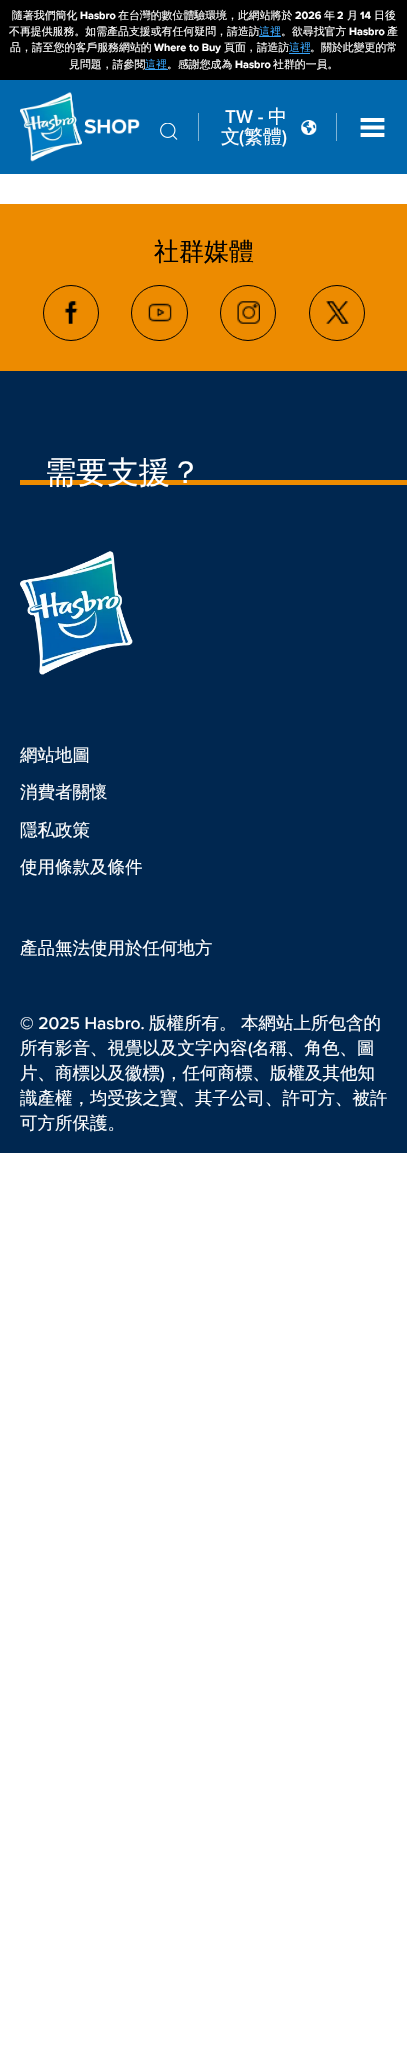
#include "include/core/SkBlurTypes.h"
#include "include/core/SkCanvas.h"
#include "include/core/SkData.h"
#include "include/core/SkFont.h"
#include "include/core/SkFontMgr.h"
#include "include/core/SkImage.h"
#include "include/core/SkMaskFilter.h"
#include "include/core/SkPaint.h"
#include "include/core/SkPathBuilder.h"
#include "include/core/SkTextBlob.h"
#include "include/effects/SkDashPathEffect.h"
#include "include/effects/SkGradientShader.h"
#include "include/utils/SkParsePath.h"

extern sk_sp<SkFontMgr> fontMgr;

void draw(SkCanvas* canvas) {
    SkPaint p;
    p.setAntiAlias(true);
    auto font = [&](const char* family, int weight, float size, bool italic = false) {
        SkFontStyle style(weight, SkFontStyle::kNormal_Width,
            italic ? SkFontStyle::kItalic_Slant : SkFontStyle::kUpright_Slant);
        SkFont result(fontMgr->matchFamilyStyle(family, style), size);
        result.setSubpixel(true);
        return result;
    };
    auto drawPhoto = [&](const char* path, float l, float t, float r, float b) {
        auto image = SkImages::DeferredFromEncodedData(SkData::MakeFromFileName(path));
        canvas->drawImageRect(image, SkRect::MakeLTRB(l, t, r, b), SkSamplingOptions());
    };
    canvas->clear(0xFFFFFFFF);
    p.setColor(0xFF000000);
    canvas->drawRect(SkRect::MakeLTRB(0, 0, 407, 80), p);
    auto font1 = font("WenQuanYi Zen Hei", 500, 10.9f);
    p.setColor(0xFFFFFFFF);
    canvas->drawString("隨著我們簡化", 12, 19, font1, p);
    auto font2 = font("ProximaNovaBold", 700, 10.9f);
    canvas->drawString("Hasbro", 80, 19, font2, p);
    canvas->drawString("在台灣的數位體驗環境，此網站將於", 118, 19, font1, p);
    canvas->drawString("2026", 295, 19, font2, p);
    canvas->drawString("年", 324, 19, font1, p);
    canvas->drawString("2", 337, 19, font2, p);
    canvas->drawString("月", 347, 19, font1, p);
    canvas->drawString("14", 360, 19, font2, p);
    canvas->drawString("日後", 374, 19, font1, p);
    canvas->drawString("不再提供服務。如需產品支援或有任何疑問，請造訪", 9, 35, font1, p);
    p.setColor(0xFF36A2F6);
    canvas->drawRect(SkRect::MakeLTRB(259, 36, 281, 37), p);
    canvas->drawString("這裡", 259, 35, font1, p);
    p.setColor(0xFFFFFFFF);
    canvas->drawString("。欲尋找官方", 281, 35, font1, p);
    canvas->drawString("Hasbro", 349, 35, font2, p);
    canvas->drawString("產", 387, 35, font1, p);
    canvas->drawString("品，請至您的客戶服務網站的", 10, 51, font1, p);
    canvas->drawString("Where to Buy", 154, 51, font2, p);
    canvas->drawString("頁面，請造訪", 224, 51, font1, p);
    p.setColor(0xFF36A2F6);
    canvas->drawString("這裡", 289, 51, font1, p);
    canvas->drawRect(SkRect::MakeLTRB(289, 53, 310, 54), p);
    p.setColor(0xFFFFFFFF);
    canvas->drawString("。關於此變更的常", 310, 51, font1, p);
    canvas->drawString("見問題，請參閱", 69, 68, font1, p);
    p.setColor(0xFF36A2F6);
    canvas->drawRect(SkRect::MakeLTRB(145, 69, 168, 70), p);
    canvas->drawString("這裡", 145, 68, font1, p);
    p.setColor(0xFFFFFFFF);
    canvas->drawString("。感謝您成為", 167, 68, font1, p);
    canvas->drawString("Hasbro", 235, 68, font2, p);
    canvas->drawString("社群的一員。", 273, 68, font1, p);
    p.setColor(0xFF0168AD);
    canvas->drawRect(SkRect::MakeLTRB(0, 80, 407, 174), p);
    drawPhoto("media/1.png", 20, 92, 140, 162);
    drawPhoto("media/2.png", 160, 123, 178, 140);
    p.setColor(0xFF80B4D6);
    canvas->drawRect(SkRect::MakeLTRB(198, 113, 199, 141), p);
    auto font3 = font("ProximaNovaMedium", 500, 19);
    p.setColor(0xFFFFFFFF);
    canvas->drawString("TW -", 225, 123, font3, p);
    auto font4 = font("WenQuanYi Zen Hei", 500, 19);
    canvas->drawString("中", 268, 123, font4, p);
    canvas->drawString("文", 221, 143, font4, p);
    canvas->drawString("(", 239, 143, font3, p);
    canvas->drawString("繁體", 244, 143, font4, p);
    canvas->drawString(")", 282, 143, font3, p);
    drawPhoto("media/3.png", 301, 120, 317, 135);
    p.setColor(0xFF80B4D6);
    canvas->drawRect(SkRect::MakeLTRB(336, 113, 337, 141), p);
    p.setStyle(SkPaint::kStroke_Style);
    p.setStrokeWidth(3.8f);
    p.setStrokeCap(SkPaint::kSquare_Cap);
    p.setStrokeJoin(SkPaint::kRound_Join);
    p.setColor(0xFFFFFFFF);
    canvas->drawPath(SkPathBuilder().moveTo(362.5f, 120).lineTo(382.5f, 120).moveTo(362.5f, 127.5f).lineTo(382.5f, 127.5f).moveTo(362.5f, 135).lineTo(382.5f, 135).detach(), p);
    p.setStyle(SkPaint::kFill_Style);
    p.setColor(0xFFED8B00);
    canvas->drawRect(SkRect::MakeLTRB(0, 204, 407, 371), p);
    auto font5 = font("WenQuanYi Zen Hei", 500, 25);
    p.setColor(0xFF000000);
    canvas->drawString("社群媒體", 154, 260, font5, p);
    p.setStyle(SkPaint::kStroke_Style);
    p.setStrokeWidth(1);
    p.setStrokeCap(SkPaint::kButt_Cap);
    p.setStrokeJoin(SkPaint::kMiter_Join);
    canvas->drawCircle(71, 313, 27.5f, p);
    drawPhoto("media/4.png", 64, 301, 78, 324);
    canvas->drawRoundRect(SkRect::MakeLTRB(131.5f, 285.5f, 187.5f, 340.5f), 27.5f, 27.5f, p);
    drawPhoto("media/5.png", 148, 303, 172, 322);
    canvas->drawCircle(248, 313, 27.5f, p);
    drawPhoto("media/6.png", 237, 301, 260, 324);
    canvas->drawCircle(337, 313, 27.5f, p);
    drawPhoto("media/7.png", 326, 301, 349, 324);
    p.setStyle(SkPaint::kFill_Style);
    p.setColor(0xFF002750);
    canvas->drawRect(SkRect::MakeLTRB(0, 371, 407, 1153), p);
    p.setColor(0xFFED8B00);
    canvas->drawRect(SkRect::MakeLTRB(20, 480, 407, 485), p);
    auto font6 = font("WenQuanYi Zen Hei", 500, 31.25f);
    p.setColor(0xFFFFFFFF);
    canvas->drawString("需要支援？", 45, 483, font6, p);
    drawPhoto("media/8.png", 20, 551, 133, 675);
    auto font7 = font("WenQuanYi Zen Hei", 500, 17.5f);
    {
        const struct { const char* s; float x, y; } items[] = {
            {"網站地圖", 20, 761},
            {"消費者關懷", 20, 798},
            {"隱私政策", 20, 836},
            {"使用條款及條件", 20, 873},
            {"產品無法使用於任何地方", 20, 954},
        };
        for (auto [s, x, y] : items) {
            canvas->drawString(s, x, y, font7, p);
        }
    }
    auto font8 = font("ProximaNovaMedium", 500, 17.5f);
    canvas->drawString("© 2025 Hasbro.", 20, 1029, font8, p);
    {
        const struct { const char* s; float x, y; } items[] = {
            {"版權所有。", 149, 1029},
            {"本網站上所包含的", 241, 1029},
            {"所有影音、視覺以及文字內容", 20, 1054},
        };
        for (auto [s, x, y] : items) {
            canvas->drawString(s, x, y, font7, p);
        }
    }
    canvas->drawString("(", 248, 1054, font8, p);
    canvas->drawString("名稱、角色、圖", 252, 1054, font7, p);
    canvas->drawString("片、商標以及徽標", 20, 1079, font7, p);
    canvas->drawString(")", 160, 1079, font8, p);
    {
        const struct { const char* s; float x, y; } items[] = {
            {"，任何商標、版權及其他知", 165, 1079},
            {"識產權，均受孩之寶、其子公司、許可方、被許", 20, 1104},
            {"可方所保護。", 20, 1129},
        };
        for (auto [s, x, y] : items) {
            canvas->drawString(s, x, y, font7, p);
        }
    }
}
